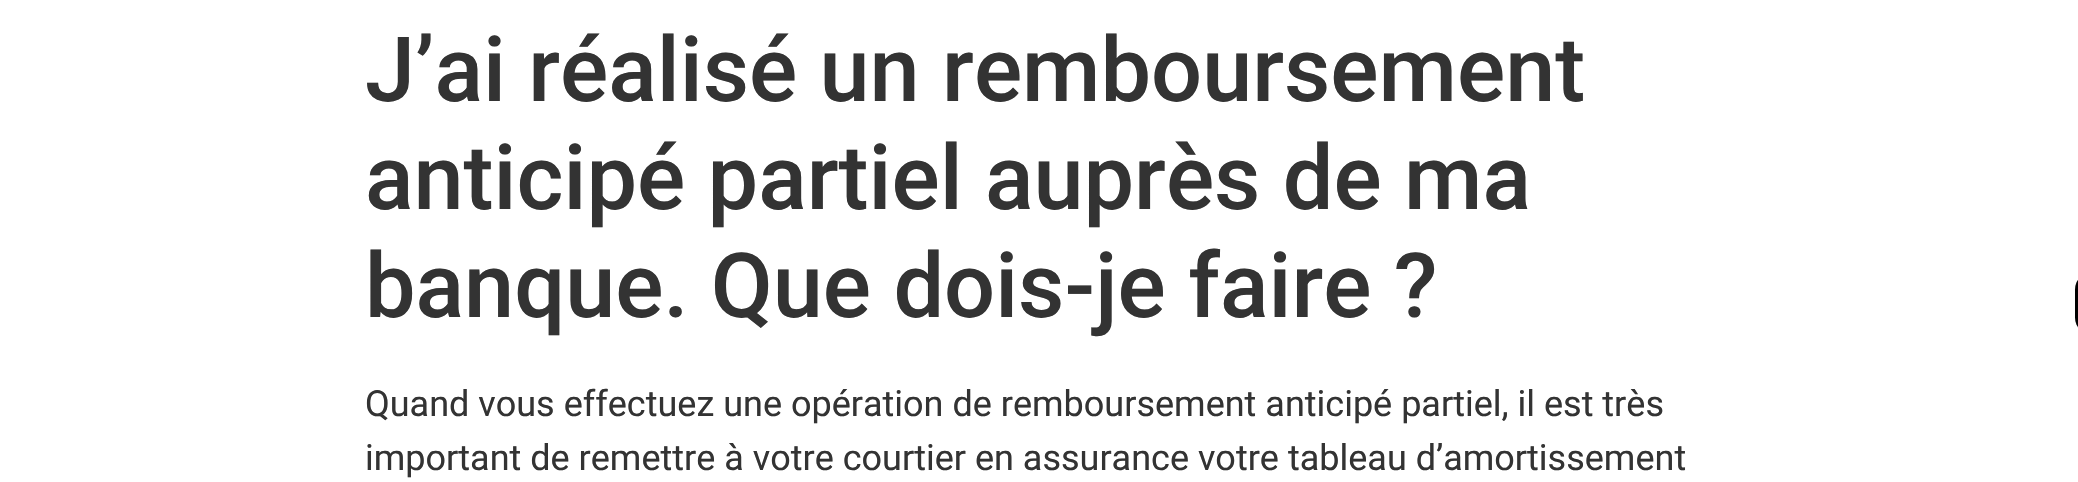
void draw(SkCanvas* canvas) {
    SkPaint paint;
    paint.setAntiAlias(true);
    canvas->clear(0xFFFFFFFF);
    SkFont font1(fontMgr->matchFamilyStyle("Roboto", SkFontStyle(500, SkFontStyle::kNormal_Width, SkFontStyle::kUpright_Slant)), 90);
    font1.setSubpixel(true);
    paint.setColor(0xFF333333);
    canvas->drawString("J’ai réalisé un remboursement", 365, 101, font1, paint);
    canvas->drawString("anticipé partiel auprès de ma", 365, 209, font1, paint);
    canvas->drawString("banque. Que dois-je faire ?", 365, 317, font1, paint);
    SkFont font2(fontMgr->matchFamilyStyle("Roboto", SkFontStyle::Normal()), 36);
    font2.setSubpixel(true);
    canvas->drawString("Quand vous effectuez une opération de remboursement anticipé partiel, il est très", 365, 416, font2, paint);
    canvas->drawString("important de remettre à votre courtier en assurance votre tableau d’amortissement", 365, 470, font2, paint);
    paint.setColor(0xFF000000);
    canvas->drawRoundRect(SkRect::MakeXYWH(2075, 272, 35, 63), 31.5f, 31.5f, paint);
}
